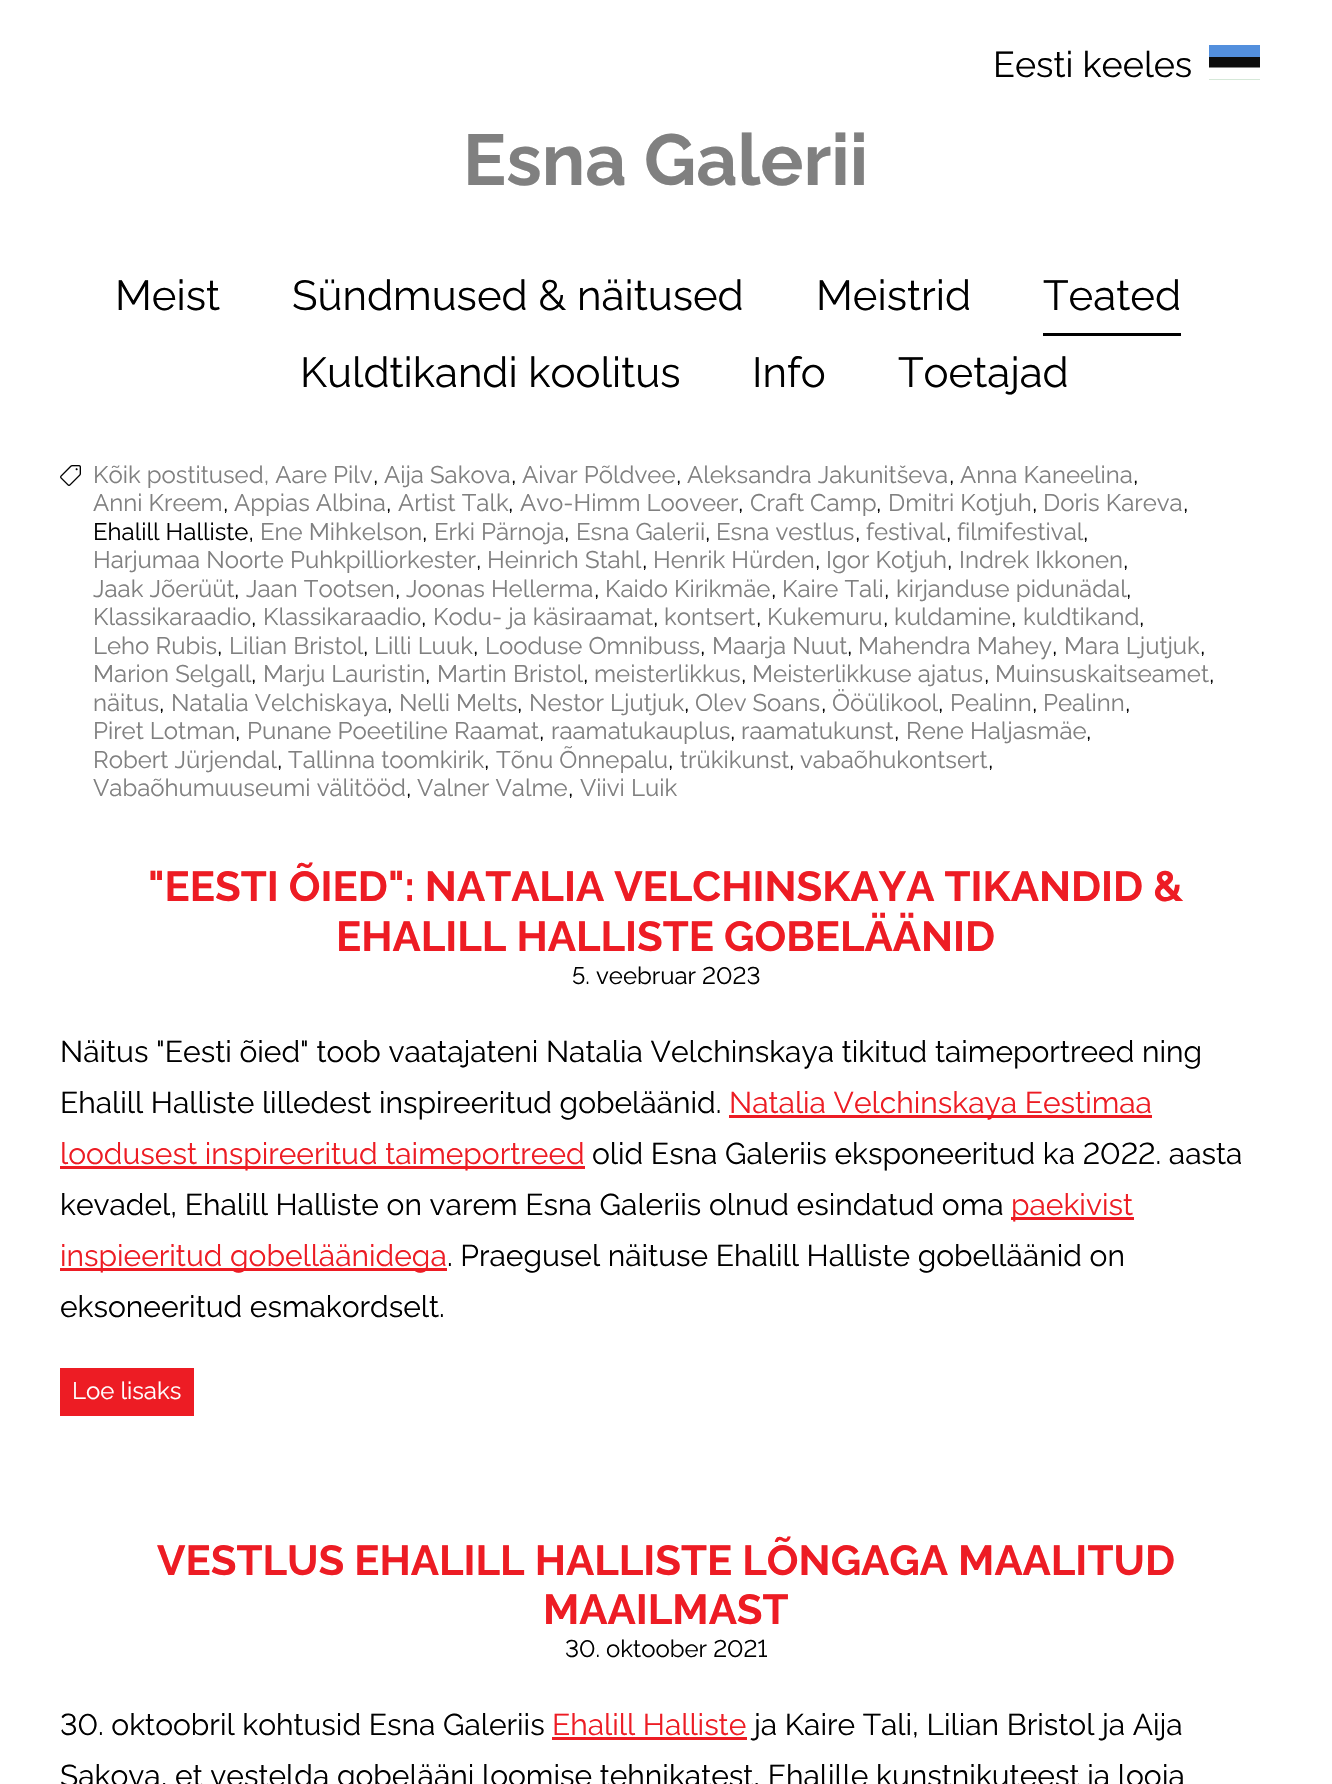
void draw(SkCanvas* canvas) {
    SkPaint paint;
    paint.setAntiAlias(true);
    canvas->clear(0xFFFFFFFF);
    SkFont font1(fontMgr->matchFamilyStyle("Raleway", SkFontStyle::Normal()), 36);
    font1.setSubpixel(true);
    paint.setColor(0xFF000000);
    canvas->drawString("Eesti keeles", 993, 77, font1, paint);
    canvas->drawImageRect(SkImages::DeferredFromEncodedData(SkData::MakeFromFileName("img1.png")), SkRect::MakeXYWH(1209, 45, 51, 35), SkSamplingOptions());
    SkFont font2(fontMgr->matchFamilyStyle("Raleway", SkFontStyle::Bold()), 72);
    font2.setSubpixel(true);
    paint.setColor(0xFF808080);
    canvas->drawString("Esna Galerii", 463, 185, font2, paint);
    SkFont font3(fontMgr->matchFamilyStyle("Raleway", SkFontStyle::Normal()), 42);
    font3.setSubpixel(true);
    paint.setColor(0xFF000000);
    canvas->drawString("Meist", 115, 310, font3, paint);
    canvas->drawString("Sündmused & näitused", 292, 310, font3, paint);
    canvas->drawString("Meistrid", 816, 310, font3, paint);
    canvas->drawRect(SkRect::MakeXYWH(1043, 333, 138, 3), paint);
    canvas->drawString("Teated", 1043, 310, font3, paint);
    canvas->drawString("Kuldtikandi koolitus", 300, 387, font3, paint);
    canvas->drawString("Info", 752, 387, font3, paint);
    canvas->drawString("Toetajad", 898, 387, font3, paint);
    canvas->drawImageRect(SkImages::DeferredFromEncodedData(SkData::MakeFromFileName("img2.png")), SkRect::MakeXYWH(60, 465, 21, 21), SkSamplingOptions());
    SkFont font4(fontMgr->matchFamilyStyle("Raleway", SkFontStyle::Normal()), 24);
    font4.setSubpixel(true);
    paint.setColor(0xFF808080);
    canvas->drawString("Kõik postitused, Aare Pilv", 93, 483, font4, paint);
    paint.setColor(0xFF000000);
    canvas->drawString(",", 373, 483, font4, paint);
    paint.setColor(0xFF808080);
    canvas->drawString("Aija Sakova", 384, 483, font4, paint);
    paint.setColor(0xFF000000);
    canvas->drawString(",", 511, 483, font4, paint);
    paint.setColor(0xFF808080);
    canvas->drawString("Aivar Põldvee", 522, 483, font4, paint);
    paint.setColor(0xFF000000);
    canvas->drawString(",", 676, 483, font4, paint);
    paint.setColor(0xFF808080);
    canvas->drawString("Aleksandra Jakunitševa", 687, 483, font4, paint);
    paint.setColor(0xFF000000);
    canvas->drawString(",", 949, 483, font4, paint);
    paint.setColor(0xFF808080);
    canvas->drawString("Anna Kaneelina", 960, 483, font4, paint);
    paint.setColor(0xFF000000);
    canvas->drawString(",", 1133, 483, font4, paint);
    paint.setColor(0xFF808080);
    canvas->drawString("Anni Kreem", 93, 511, font4, paint);
    paint.setColor(0xFF000000);
    canvas->drawString(",", 223, 511, font4, paint);
    paint.setColor(0xFF808080);
    canvas->drawString("Appias Albina", 234, 511, font4, paint);
    paint.setColor(0xFF000000);
    canvas->drawString(",", 386, 511, font4, paint);
    paint.setColor(0xFF808080);
    canvas->drawString("Artist Talk", 398, 511, font4, paint);
    paint.setColor(0xFF000000);
    canvas->drawString(",", 508, 511, font4, paint);
    paint.setColor(0xFF808080);
    canvas->drawString("Avo-Himm Looveer", 520, 511, font4, paint);
    paint.setColor(0xFF000000);
    canvas->drawString(",", 738, 511, font4, paint);
    paint.setColor(0xFF808080);
    canvas->drawString("Craft Camp", 750, 511, font4, paint);
    paint.setColor(0xFF000000);
    canvas->drawString(",", 876, 511, font4, paint);
    paint.setColor(0xFF808080);
    canvas->drawString("Dmitri Kotjuh", 888, 511, font4, paint);
    paint.setColor(0xFF000000);
    canvas->drawString(",", 1032, 511, font4, paint);
    paint.setColor(0xFF808080);
    canvas->drawString("Doris Kareva", 1043, 511, font4, paint);
    paint.setColor(0xFF000000);
    canvas->drawString(",", 1183, 511, font4, paint);
    canvas->drawString("Ehalill Halliste,", 93, 540, font4, paint);
    paint.setColor(0xFF808080);
    canvas->drawString("Ene Mihkelson", 260, 540, font4, paint);
    paint.setColor(0xFF000000);
    canvas->drawString(",", 422, 540, font4, paint);
    paint.setColor(0xFF808080);
    canvas->drawString("Erki Pärnoja", 434, 540, font4, paint);
    paint.setColor(0xFF000000);
    canvas->drawString(",", 564, 540, font4, paint);
    paint.setColor(0xFF808080);
    canvas->drawString("Esna Galerii", 576, 540, font4, paint);
    paint.setColor(0xFF000000);
    canvas->drawString(",", 705, 540, font4, paint);
    paint.setColor(0xFF808080);
    canvas->drawString("Esna vestlus", 716, 540, font4, paint);
    paint.setColor(0xFF000000);
    canvas->drawString(",", 855, 540, font4, paint);
    paint.setColor(0xFF808080);
    canvas->drawString("festival", 866, 540, font4, paint);
    paint.setColor(0xFF000000);
    canvas->drawString(",", 946, 540, font4, paint);
    paint.setColor(0xFF808080);
    canvas->drawString("filmifestival", 957, 540, font4, paint);
    paint.setColor(0xFF000000);
    canvas->drawString(",", 1083, 540, font4, paint);
    paint.setColor(0xFF808080);
    canvas->drawString("Harjumaa Noorte Puhkpilliorkester", 93, 568, font4, paint);
    paint.setColor(0xFF000000);
    canvas->drawString(",", 476, 568, font4, paint);
    paint.setColor(0xFF808080);
    canvas->drawString("Heinrich Stahl", 487, 568, font4, paint);
    paint.setColor(0xFF000000);
    canvas->drawString(",", 642, 568, font4, paint);
    paint.setColor(0xFF808080);
    canvas->drawString("Henrik Hürden", 653, 568, font4, paint);
    paint.setColor(0xFF000000);
    canvas->drawString(",", 815, 568, font4, paint);
    paint.setColor(0xFF808080);
    canvas->drawString("Igor Kotjuh", 826, 568, font4, paint);
    paint.setColor(0xFF000000);
    canvas->drawString(",", 947, 568, font4, paint);
    paint.setColor(0xFF808080);
    canvas->drawString("Indrek Ikkonen", 959, 568, font4, paint);
    paint.setColor(0xFF000000);
    canvas->drawString(",", 1123, 568, font4, paint);
    paint.setColor(0xFF808080);
    canvas->drawString("Jaak Jõerüüt", 93, 597, font4, paint);
    paint.setColor(0xFF000000);
    canvas->drawString(",", 234, 597, font4, paint);
    paint.setColor(0xFF808080);
    canvas->drawString("Jaan Tootsen", 246, 597, font4, paint);
    paint.setColor(0xFF000000);
    canvas->drawString(",", 395, 597, font4, paint);
    paint.setColor(0xFF808080);
    canvas->drawString("Joonas Hellerma", 406, 597, font4, paint);
    paint.setColor(0xFF000000);
    canvas->drawString(",", 594, 597, font4, paint);
    paint.setColor(0xFF808080);
    canvas->drawString("Kaido Kirikmäe", 605, 597, font4, paint);
    paint.setColor(0xFF000000);
    canvas->drawString(",", 771, 597, font4, paint);
    paint.setColor(0xFF808080);
    canvas->drawString("Kaire Tali", 782, 597, font4, paint);
    paint.setColor(0xFF000000);
    canvas->drawString(",", 884, 597, font4, paint);
    paint.setColor(0xFF808080);
    canvas->drawString("kirjanduse pidunädal", 896, 597, font4, paint);
    paint.setColor(0xFF000000);
    canvas->drawString(",", 1126, 597, font4, paint);
    paint.setColor(0xFF808080);
    canvas->drawString("Klassikaraadio", 93, 625, font4, paint);
    paint.setColor(0xFF000000);
    canvas->drawString(",", 251, 625, font4, paint);
    paint.setColor(0xFF808080);
    canvas->drawString("Klassikaraadio", 263, 625, font4, paint);
    paint.setColor(0xFF000000);
    canvas->drawString(",", 421, 625, font4, paint);
    paint.setColor(0xFF808080);
    canvas->drawString("Kodu- ja käsiraamat", 433, 625, font4, paint);
    paint.setColor(0xFF000000);
    canvas->drawString(",", 653, 625, font4, paint);
    paint.setColor(0xFF808080);
    canvas->drawString("kontsert", 664, 625, font4, paint);
    paint.setColor(0xFF000000);
    canvas->drawString(",", 756, 625, font4, paint);
    paint.setColor(0xFF808080);
    canvas->drawString("Kukemuru", 767, 625, font4, paint);
    paint.setColor(0xFF000000);
    canvas->drawString(",", 883, 625, font4, paint);
    paint.setColor(0xFF808080);
    canvas->drawString("kuldamine", 894, 625, font4, paint);
    paint.setColor(0xFF000000);
    canvas->drawString(",", 1011, 625, font4, paint);
    paint.setColor(0xFF808080);
    canvas->drawString("kuldtikand", 1023, 625, font4, paint);
    paint.setColor(0xFF000000);
    canvas->drawString(",", 1139, 625, font4, paint);
    paint.setColor(0xFF808080);
    canvas->drawString("Leho Rubis", 93, 654, font4, paint);
    paint.setColor(0xFF000000);
    canvas->drawString(",", 217, 654, font4, paint);
    paint.setColor(0xFF808080);
    canvas->drawString("Lilian Bristol", 229, 654, font4, paint);
    paint.setColor(0xFF000000);
    canvas->drawString(",", 363, 654, font4, paint);
    paint.setColor(0xFF808080);
    canvas->drawString("Lilli Luuk", 374, 654, font4, paint);
    paint.setColor(0xFF000000);
    canvas->drawString(",", 473, 654, font4, paint);
    paint.setColor(0xFF808080);
    canvas->drawString("Looduse Omnibuss", 485, 654, font4, paint);
    paint.setColor(0xFF000000);
    canvas->drawString(",", 700, 654, font4, paint);
    paint.setColor(0xFF808080);
    canvas->drawString("Maarja Nuut", 712, 654, font4, paint);
    paint.setColor(0xFF000000);
    canvas->drawString(",", 847, 654, font4, paint);
    paint.setColor(0xFF808080);
    canvas->drawString("Mahendra Mahey", 858, 654, font4, paint);
    paint.setColor(0xFF000000);
    canvas->drawString(",", 1052, 654, font4, paint);
    paint.setColor(0xFF808080);
    canvas->drawString("Mara Ljutjuk", 1064, 654, font4, paint);
    paint.setColor(0xFF000000);
    canvas->drawString(",", 1200, 654, font4, paint);
    paint.setColor(0xFF808080);
    canvas->drawString("Marion Selgall", 93, 682, font4, paint);
    paint.setColor(0xFF000000);
    canvas->drawString(",", 251, 682, font4, paint);
    paint.setColor(0xFF808080);
    canvas->drawString("Marju Lauristin", 263, 682, font4, paint);
    paint.setColor(0xFF000000);
    canvas->drawString(",", 425, 682, font4, paint);
    paint.setColor(0xFF808080);
    canvas->drawString("Martin Bristol", 437, 682, font4, paint);
    paint.setColor(0xFF000000);
    canvas->drawString(",", 583, 682, font4, paint);
    paint.setColor(0xFF808080);
    canvas->drawString("meisterlikkus", 594, 682, font4, paint);
    paint.setColor(0xFF000000);
    canvas->drawString(",", 741, 682, font4, paint);
    paint.setColor(0xFF808080);
    canvas->drawString("Meisterlikkuse ajatus", 752, 682, font4, paint);
    paint.setColor(0xFF000000);
    canvas->drawString(",", 984, 682, font4, paint);
    paint.setColor(0xFF808080);
    canvas->drawString("Muinsuskaitseamet", 995, 682, font4, paint);
    paint.setColor(0xFF000000);
    canvas->drawString(",", 1209, 682, font4, paint);
    paint.setColor(0xFF808080);
    canvas->drawString("näitus", 93, 711, font4, paint);
    paint.setColor(0xFF000000);
    canvas->drawString(",", 159, 711, font4, paint);
    paint.setColor(0xFF808080);
    canvas->drawString("Natalia Velchiskaya", 171, 711, font4, paint);
    paint.setColor(0xFF000000);
    canvas->drawString(",", 387, 711, font4, paint);
    paint.setColor(0xFF808080);
    canvas->drawString("Nelli Melts", 399, 711, font4, paint);
    paint.setColor(0xFF000000);
    canvas->drawString(",", 517, 711, font4, paint);
    paint.setColor(0xFF808080);
    canvas->drawString("Nestor Ljutjuk", 529, 711, font4, paint);
    paint.setColor(0xFF000000);
    canvas->drawString(",", 684, 711, font4, paint);
    paint.setColor(0xFF808080);
    canvas->drawString("Olev Soans", 695, 711, font4, paint);
    paint.setColor(0xFF000000);
    canvas->drawString(",", 821, 711, font4, paint);
    paint.setColor(0xFF808080);
    canvas->drawString("Ööülikool", 832, 711, font4, paint);
    paint.setColor(0xFF000000);
    canvas->drawString(",", 938, 711, font4, paint);
    paint.setColor(0xFF808080);
    canvas->drawString("Pealinn", 950, 711, font4, paint);
    paint.setColor(0xFF000000);
    canvas->drawString(",", 1032, 711, font4, paint);
    paint.setColor(0xFF808080);
    canvas->drawString("Pealinn", 1043, 711, font4, paint);
    paint.setColor(0xFF000000);
    canvas->drawString(",", 1125, 711, font4, paint);
    paint.setColor(0xFF808080);
    canvas->drawString("Piret Lotman", 93, 739, font4, paint);
    paint.setColor(0xFF000000);
    canvas->drawString(",", 235, 739, font4, paint);
    paint.setColor(0xFF808080);
    canvas->drawString("Punane Poeetiline Raamat", 247, 739, font4, paint);
    paint.setColor(0xFF000000);
    canvas->drawString(",", 539, 739, font4, paint);
    paint.setColor(0xFF808080);
    canvas->drawString("raamatukauplus", 551, 739, font4, paint);
    paint.setColor(0xFF000000);
    canvas->drawString(",", 730, 739, font4, paint);
    paint.setColor(0xFF808080);
    canvas->drawString("raamatukunst", 741, 739, font4, paint);
    paint.setColor(0xFF000000);
    canvas->drawString(",", 894, 739, font4, paint);
    paint.setColor(0xFF808080);
    canvas->drawString("Rene Haljasmäe", 906, 739, font4, paint);
    paint.setColor(0xFF000000);
    canvas->drawString(",", 1086, 739, font4, paint);
    paint.setColor(0xFF808080);
    canvas->drawString("Robert Jürjendal", 93, 768, font4, paint);
    paint.setColor(0xFF000000);
    canvas->drawString(",", 277, 768, font4, paint);
    paint.setColor(0xFF808080);
    canvas->drawString("Tallinna toomkirik", 288, 768, font4, paint);
    paint.setColor(0xFF000000);
    canvas->drawString(",", 484, 768, font4, paint);
    paint.setColor(0xFF808080);
    canvas->drawString("Tõnu Õnnepalu", 496, 768, font4, paint);
    paint.setColor(0xFF000000);
    canvas->drawString(",", 668, 768, font4, paint);
    paint.setColor(0xFF808080);
    canvas->drawString("trükikunst", 680, 768, font4, paint);
    paint.setColor(0xFF000000);
    canvas->drawString(",", 789, 768, font4, paint);
    paint.setColor(0xFF808080);
    canvas->drawString("vabaõhukontsert", 800, 768, font4, paint);
    paint.setColor(0xFF000000);
    canvas->drawString(",", 988, 768, font4, paint);
    paint.setColor(0xFF808080);
    canvas->drawString("Vabaõhumuuseumi välitööd", 93, 796, font4, paint);
    paint.setColor(0xFF000000);
    canvas->drawString(",", 406, 796, font4, paint);
    paint.setColor(0xFF808080);
    canvas->drawString("Valner Valme", 417, 796, font4, paint);
    paint.setColor(0xFF000000);
    canvas->drawString(",", 568, 796, font4, paint);
    paint.setColor(0xFF808080);
    canvas->drawString("Viivi Luik", 580, 796, font4, paint);
    SkFont font5(fontMgr->matchFamilyStyle("Raleway", SkFontStyle::Bold()), 42);
    font5.setSubpixel(true);
    paint.setColor(0xFFED1C24);
    canvas->drawString("\"EESTI ÕIED\": NATALIA VELCHINSKAYA TIKANDID &", 148, 901, font5, paint);
    canvas->drawString("EHALILL HALLISTE GOBELÄÄNID", 336, 951, font5, paint);
    SkFont font6(fontMgr->matchFamilyStyle("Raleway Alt", SkFontStyle::Normal()), 24);
    font6.setSubpixel(true);
    paint.setColor(0xFF000000);
    canvas->drawString("5. veebruar 2023", 572, 984, font6, paint);
    SkFont font7(fontMgr->matchFamilyStyle("Raleway", SkFontStyle::Normal()), 30);
    font7.setSubpixel(true);
    canvas->drawString("Näitus \"Eesti õied\" toob vaatajateni Natalia Velchinskaya tikitud taimeportreed ning", 60, 1062, font7, paint);
    canvas->drawString("Ehalill Halliste lilledest inspireeritud gobeläänid.", 60, 1113, font7, paint);
    paint.setColor(0xFFED1C24);
    canvas->drawRect(SkRect::MakeXYWH(729, 1115, 423, 3), paint);
    canvas->drawString("Natalia Velchinskaya Eestimaa", 729, 1113, font7, paint);
    canvas->drawRect(SkRect::MakeXYWH(60, 1166, 525, 3), paint);
    canvas->drawString("loodusest inspireeritud taimeportreed", 60, 1164, font7, paint);
    SkFont font8(fontMgr->matchFamilyStyle("Raleway Alt", SkFontStyle::Normal()), 30);
    font8.setSubpixel(true);
    paint.setColor(0xFF000000);
    canvas->drawString("olid Esna Galeriis eksponeeritud ka 2022. aasta", 592, 1164, font8, paint);
    canvas->drawString("kevadel, Ehalill Halliste on varem Esna Galeriis olnud esindatud oma", 60, 1215, font7, paint);
    paint.setColor(0xFFED1C24);
    canvas->drawRect(SkRect::MakeXYWH(1011, 1217, 123, 3), paint);
    canvas->drawString("paekivist", 1011, 1215, font7, paint);
    canvas->drawRect(SkRect::MakeXYWH(60, 1268, 387, 3), paint);
    canvas->drawString("inspieeritud gobelläänidega", 60, 1266, font7, paint);
    paint.setColor(0xFF000000);
    canvas->drawString(". Praegusel näituse Ehalill Halliste gobelläänid on", 447, 1266, font7, paint);
    canvas->drawString("eksoneeritud esmakordselt.", 60, 1317, font7, paint);
    paint.setColor(0xFFED1C24);
    canvas->drawRect(SkRect::MakeXYWH(60, 1368, 134, 48), paint);
    paint.setColor(0xFFFFFFFF);
    canvas->drawString("Loe lisaks", 72, 1399, font4, paint);
    paint.setColor(0xFFED1C24);
    canvas->drawString("VESTLUS EHALILL HALLISTE LÕNGAGA MAALITUD", 157, 1575, font5, paint);
    canvas->drawString("MAAILMAST", 543, 1624, font5, paint);
    paint.setColor(0xFF000000);
    canvas->drawString("30. oktoober 2021", 565, 1657, font6, paint);
    canvas->drawString("30. oktoobril kohtusid Esna Galeriis", 60, 1735, font8, paint);
    paint.setColor(0xFFED1C24);
    canvas->drawString("Ehalill Halliste", 552, 1735, font7, paint);
    canvas->drawRect(SkRect::MakeXYWH(552, 1737, 195, 3), paint);
    paint.setColor(0xFF000000);
    canvas->drawString("ja Kaire Tali, Lilian Bristol ja Aija", 754, 1735, font7, paint);
    canvas->drawString("Sakova, et vestelda gobelääni loomise tehnikatest, Ehalille kunstnikuteest ja looja", 60, 1786, font7, paint);
}
